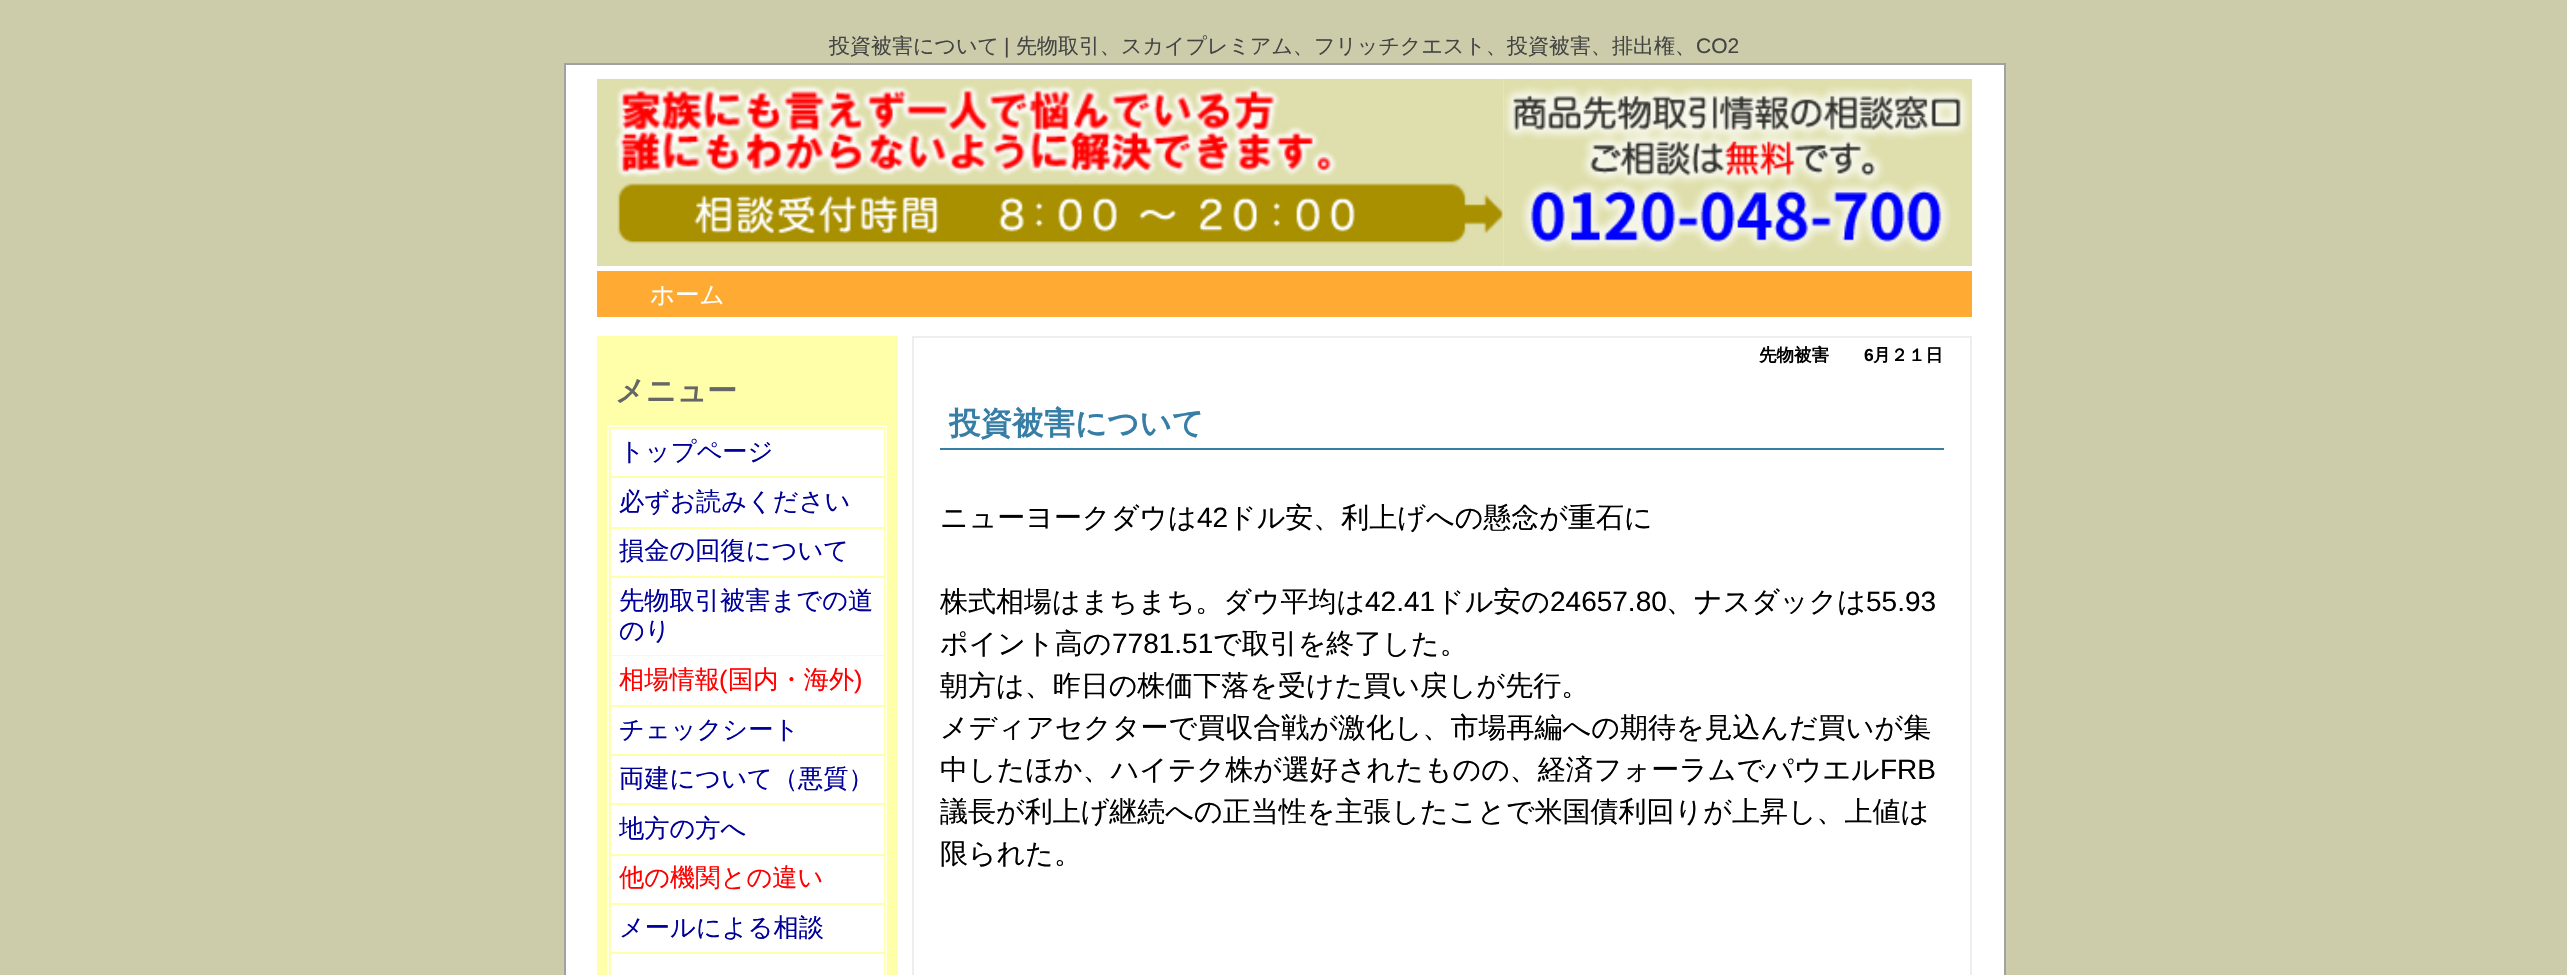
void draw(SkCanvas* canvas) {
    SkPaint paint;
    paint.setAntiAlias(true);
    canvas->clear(0xFFCCCCAA);
    SkFont font1(fontMgr->matchFamilyStyle("WenQuanYi Zen Hei", SkFontStyle(500, SkFontStyle::kNormal_Width, SkFontStyle::kUpright_Slant)), 21);
    font1.setSubpixel(true);
    paint.setColor(0xFF444444);
    canvas->drawString("投資被害について", 829, 53, font1, paint);
    SkFont font2(fontMgr->matchFamilyStyle("Liberation Sans", SkFontStyle::Normal()), 21);
    font2.setSubpixel(true);
    canvas->drawString("|", 1004, 53, font2, paint);
    canvas->drawString("先物取引、スカイプレミアム、フリッチクエスト、投資被害、排出権、", 1016, 53, font1, paint);
    canvas->drawString("CO2", 1696, 53, font2, paint);
    paint.setColor(0xFFFFFFFF);
    canvas->drawRect(SkRect::MakeXYWH(565, 64, 1440, 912), paint);
    paint.setStyle(SkPaint::kStroke_Style);
    paint.setStrokeWidth(2);
    paint.setColor(0xFFA1A1A1);
    canvas->drawRect(SkRect::MakeXYWH(565, 64, 1440, 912), paint);
    canvas->drawImageRect(SkImages::DeferredFromEncodedData(SkData::MakeFromFileName("img1.png")), SkRect::MakeXYWH(596, 78, 908, 188), SkSamplingOptions());
    canvas->drawImageRect(SkImages::DeferredFromEncodedData(SkData::MakeFromFileName("img2.png")), SkRect::MakeXYWH(1503, 78, 470, 188), SkSamplingOptions());
    paint.setStyle(SkPaint::kFill_Style);
    paint.setColor(0xFFFFAA33);
    canvas->drawRect(SkRect::MakeXYWH(597, 271, 1375, 46), paint);
    SkFont font3(fontMgr->matchFamilyStyle("WenQuanYi Zen Hei", SkFontStyle(500, SkFontStyle::kNormal_Width, SkFontStyle::kUpright_Slant)), 24.5f);
    font3.setSubpixel(true);
    paint.setColor(0xFFFFFFFF);
    canvas->drawString("ホーム", 650, 303, font3, paint);
    paint.setColor(0xFFFFFFAA);
    canvas->drawRect(SkRect::MakeXYWH(597, 336, 301, 639), paint);
    SkFont font4(fontMgr->matchFamilyStyle("WenQuanYi Zen Hei", SkFontStyle::Bold()), 30);
    font4.setSubpixel(true);
    paint.setColor(0xFF666666);
    canvas->drawString("メニュー", 615, 401, font4, paint);
    paint.setStyle(SkPaint::kStroke_Style);
    paint.setColor(0xFFFFFFEE);
    canvas->drawRect(SkRect::MakeXYWH(608, 426, 278, 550), paint);
    paint.setStyle(SkPaint::kFill_Style);
    paint.setColor(0xFFFFFFFF);
    canvas->drawRect(SkRect::MakeXYWH(611, 429, 273, 47), paint);
    SkFont font5(fontMgr->matchFamilyStyle("WenQuanYi Zen Hei", SkFontStyle(500, SkFontStyle::kNormal_Width, SkFontStyle::kUpright_Slant)), 25.25f);
    font5.setSubpixel(true);
    paint.setColor(0xFF000099);
    canvas->drawString("トップページ", 619, 460, font5, paint);
    paint.setColor(0xFFFFFFFF);
    canvas->drawRect(SkRect::MakeXYWH(611, 478, 273, 49), paint);
    paint.setColor(0xFF000099);
    canvas->drawString("必ずお読みください", 619, 510, font5, paint);
    paint.setColor(0xFFFFFFFF);
    canvas->drawRect(SkRect::MakeXYWH(611, 529, 273, 47), paint);
    paint.setColor(0xFF000099);
    canvas->drawString("損金の回復について", 619, 559, font5, paint);
    paint.setColor(0xFFFFFFFF);
    canvas->drawRect(SkRect::MakeXYWH(611, 578, 273, 77), paint);
    paint.setColor(0xFF000099);
    canvas->drawString("先物取引被害までの道", 619, 609, font5, paint);
    canvas->drawString("のり", 619, 639, font5, paint);
    paint.setColor(0xFFFFFFFF);
    canvas->drawRect(SkRect::MakeXYWH(611, 656, 273, 49), paint);
    paint.setColor(0xFFFF0000);
    canvas->drawString("相場情報", 619, 688, font5, paint);
    SkFont font6(fontMgr->matchFamilyStyle("Liberation Sans", SkFontStyle::Normal()), 25.25f);
    font6.setSubpixel(true);
    canvas->drawString("(", 719, 688, font6, paint);
    canvas->drawString("国内・海外", 728, 688, font5, paint);
    canvas->drawString(")", 854, 688, font6, paint);
    paint.setColor(0xFFFFFFFF);
    canvas->drawRect(SkRect::MakeXYWH(611, 707, 273, 47), paint);
    paint.setColor(0xFF000099);
    canvas->drawString("チェックシート", 619, 738, font5, paint);
    paint.setColor(0xFFFFFFFF);
    canvas->drawRect(SkRect::MakeXYWH(611, 756, 273, 47), paint);
    paint.setColor(0xFF000099);
    canvas->drawString("両建について（悪質）", 619, 787, font5, paint);
    paint.setColor(0xFFFFFFFF);
    canvas->drawRect(SkRect::MakeXYWH(611, 805, 273, 49), paint);
    paint.setColor(0xFF000099);
    canvas->drawString("地方の方へ", 619, 837, font5, paint);
    paint.setColor(0xFFFFFFFF);
    canvas->drawRect(SkRect::MakeXYWH(611, 856, 273, 47), paint);
    paint.setColor(0xFFFF0000);
    canvas->drawString("他の機関との違い", 619, 886, font5, paint);
    paint.setColor(0xFFFFFFFF);
    canvas->drawRect(SkRect::MakeXYWH(611, 905, 273, 47), paint);
    paint.setColor(0xFF000099);
    canvas->drawString("メールによる相談", 619, 936, font5, paint);
    paint.setColor(0xFFFFFFFF);
    canvas->drawRect(SkRect::MakeXYWH(611, 954, 273, 21), paint);
    paint.setStyle(SkPaint::kStroke_Style);
    paint.setColor(0xFFEEEEEE);
    canvas->drawRect(SkRect::MakeXYWH(913, 337, 1058, 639), paint);
    SkFont font7(fontMgr->matchFamilyStyle("WenQuanYi Zen Hei", SkFontStyle::Bold()), 17.5f);
    font7.setSubpixel(true);
    paint.setStyle(SkPaint::kFill_Style);
    paint.setColor(0xFF000000);
    canvas->drawString("先物被害", 1759, 361, font7, paint);
    SkFont font8(fontMgr->matchFamilyStyle("Liberation Sans", SkFontStyle::Bold()), 17.5f);
    font8.setSubpixel(true);
    canvas->drawString("6", 1864, 361, font8, paint);
    canvas->drawString("月２１日", 1873, 361, font7, paint);
    paint.setColor(0xFF367EA6);
    canvas->drawRect(SkRect::MakeXYWH(940, 448, 1004, 2), paint);
    SkFont font9(fontMgr->matchFamilyStyle("WenQuanYi Zen Hei", SkFontStyle::Bold()), 31.5f);
    font9.setSubpixel(true);
    canvas->drawString("投資被害について", 949, 434, font9, paint);
    SkFont font10(fontMgr->matchFamilyStyle("WenQuanYi Zen Hei", SkFontStyle(500, SkFontStyle::kNormal_Width, SkFontStyle::kUpright_Slant)), 28);
    font10.setSubpixel(true);
    paint.setColor(0xFF000000);
    canvas->drawString("ニューヨークダウは", 940, 527, font10, paint);
    SkFont font11(fontMgr->matchFamilyStyle("Liberation Sans", SkFontStyle::Normal()), 28);
    font11.setSubpixel(true);
    canvas->drawString("42", 1197, 527, font11, paint);
    canvas->drawString("ドル安、利上げへの懸念が重石に", 1228, 527, font10, paint);
    canvas->drawString("株式相場はまちまち。ダウ平均は", 940, 611, font10, paint);
    canvas->drawString("42.41", 1365, 611, font11, paint);
    canvas->drawString("ドル安の", 1436, 611, font10, paint);
    canvas->drawString("24657.80", 1550, 611, font11, paint);
    canvas->drawString("、ナスダックは", 1666, 611, font10, paint);
    canvas->drawString("55.93", 1866, 611, font11, paint);
    canvas->drawString("ポイント高の", 940, 653, font10, paint);
    canvas->drawString("7781.51", 1112, 653, font11, paint);
    canvas->drawString("で取引を終了した。", 1213, 653, font10, paint);
    canvas->drawString("朝方は、昨日の株価下落を受けた買い戻しが先行。", 940, 695, font10, paint);
    canvas->drawString("メディアセクターで買収合戦が激化し、市場再編への期待を見込んだ買いが集", 940, 737, font10, paint);
    canvas->drawString("中したほか、ハイテク株が選好されたものの、経済フォーラムでパウエル", 940, 779, font10, paint);
    canvas->drawString("FRB", 1880, 779, font11, paint);
    canvas->drawString("議長が利上げ継続への正当性を主張したことで米国債利回りが上昇し、上値は", 940, 821, font10, paint);
    canvas->drawString("限られた。", 940, 863, font10, paint);
}
